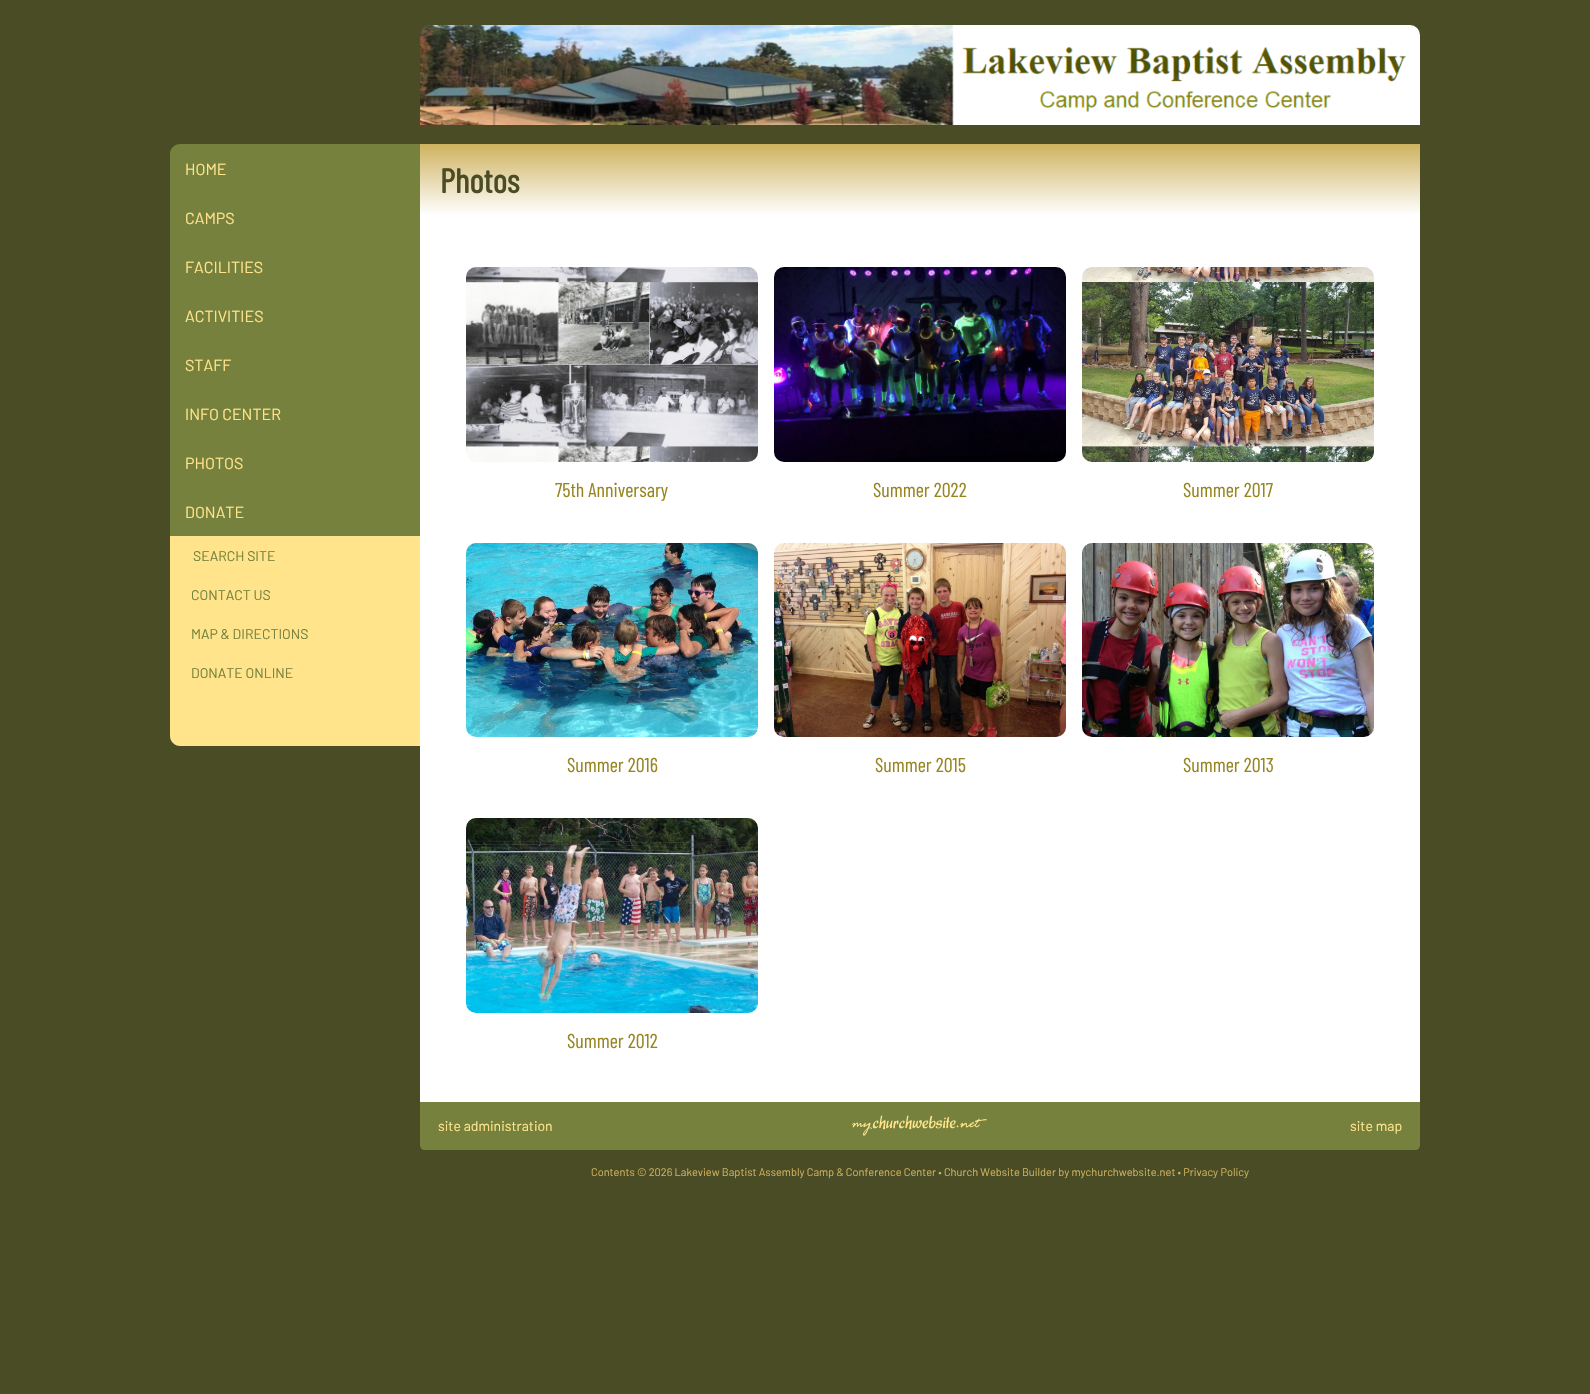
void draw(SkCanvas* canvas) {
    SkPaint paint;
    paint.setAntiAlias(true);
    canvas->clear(0xFF4A4C26);
    canvas->drawImageRect(SkImages::DeferredFromEncodedData(SkData::MakeFromFileName("img1.png")), SkRect::MakeXYWH(420, 25, 1000, 100), SkSamplingOptions());
    paint.setColor(0xFF75813C);
    canvas->drawPath(SkPathBuilder().moveTo(180, 144).lineTo(420, 144).lineTo(420, 193).lineTo(170, 193).lineTo(170, 154).cubicTo(170, 148.5f, 174.5f, 144, 180, 144).close().detach(), paint);
    SkFont font1(fontMgr->matchFamilyStyle("Barlow", SkFontStyle::Normal()), 16);
    font1.setSubpixel(true);
    paint.setColor(0xFFFFE48C);
    canvas->drawString("HOME", 185, 175, font1, paint);
    paint.setColor(0xFF75813C);
    canvas->drawRect(SkRect::MakeXYWH(170, 193, 250, 343), paint);
    paint.setColor(0xFFFFE48C);
    canvas->drawString("CAMPS", 185, 224, font1, paint);
    canvas->drawString("FACILITIES", 185, 273, font1, paint);
    canvas->drawString("ACTIVITIES", 185, 322, font1, paint);
    canvas->drawString("STAFF", 185, 371, font1, paint);
    canvas->drawString("INFO CENTER", 185, 420, font1, paint);
    canvas->drawString("PHOTOS", 185, 469, font1, paint);
    canvas->drawString("DONATE", 185, 518, font1, paint);
    canvas->drawRect(SkRect::MakeXYWH(170, 536, 250, 156), paint);
    SkFont font2(fontMgr->matchFamilyStyle("Barlow", SkFontStyle::Normal()), 14);
    font2.setSubpixel(true);
    paint.setColor(0xFF75813C);
    canvas->drawString("SEARCH SITE", 193, 561, font2, paint);
    canvas->drawString("CONTACT US", 191, 600, font2, paint);
    canvas->drawString("MAP & DIRECTIONS", 191, 639, font2, paint);
    canvas->drawString("DONATE ONLINE", 191, 678, font2, paint);
    paint.setColor(0xFFFFE48C);
    canvas->drawPath(SkPathBuilder().moveTo(170, 692).lineTo(420, 692).lineTo(420, 746).lineTo(180, 746).cubicTo(174.5f, 746, 170, 741.5f, 170, 736).close().detach(), paint);
    {
        const SkColor colors[] = {0xFFCEB25E, 0xFFFFFFFF};
        const float stops[] = {0, 1};
        const SkPoint ends[] = {{920, 144}, {920, 215}};
        paint.setShader(SkGradientShader::MakeLinear(ends, colors, stops, 2, SkTileMode::kClamp));
        paint.setAlpha(255);
    }
    canvas->drawRect(SkRect::MakeXYWH(420, 144, 1000, 71), paint);
    SkFont font3(fontMgr->matchFamilyStyle("Barlow Condensed", SkFontStyle::Bold()), 34);
    font3.setSubpixel(true);
    paint.setShader(nullptr);
    paint.setColor(0xFF4A4C26);
    canvas->drawString("Photos", 440, 193, font3, paint);
    paint.setColor(0xFFFFFFFF);
    canvas->drawRect(SkRect::MakeXYWH(420, 215, 1000, 887), paint);
    canvas->drawImageRect(SkImages::DeferredFromEncodedData(SkData::MakeFromFileName("img2.png")), SkRect::MakeXYWH(466, 267, 292, 195), SkSamplingOptions());
    SkFont font4(fontMgr->matchFamilyStyle("Barlow Condensed", SkFontStyle::Normal()), 20);
    font4.setSubpixel(true);
    paint.setColor(0xFF978521);
    canvas->drawString("75th Anniversary", 555, 497, font4, paint);
    canvas->drawImageRect(SkImages::DeferredFromEncodedData(SkData::MakeFromFileName("img3.png")), SkRect::MakeXYWH(774, 267, 292, 195), SkSamplingOptions());
    canvas->drawString("Summer 2022", 873, 497, font4, paint);
    canvas->drawImageRect(SkImages::DeferredFromEncodedData(SkData::MakeFromFileName("img4.png")), SkRect::MakeXYWH(1082, 267, 292, 195), SkSamplingOptions());
    canvas->drawString("Summer 2017", 1183, 497, font4, paint);
    canvas->drawImageRect(SkImages::DeferredFromEncodedData(SkData::MakeFromFileName("img5.png")), SkRect::MakeXYWH(466, 543, 292, 194), SkSamplingOptions());
    canvas->drawString("Summer 2016", 567, 772, font4, paint);
    canvas->drawImageRect(SkImages::DeferredFromEncodedData(SkData::MakeFromFileName("img6.png")), SkRect::MakeXYWH(774, 543, 292, 194), SkSamplingOptions());
    canvas->drawString("Summer 2015", 875, 772, font4, paint);
    canvas->drawImageRect(SkImages::DeferredFromEncodedData(SkData::MakeFromFileName("img7.png")), SkRect::MakeXYWH(1082, 543, 292, 194), SkSamplingOptions());
    canvas->drawString("Summer 2013", 1183, 772, font4, paint);
    canvas->drawImageRect(SkImages::DeferredFromEncodedData(SkData::MakeFromFileName("img8.png")), SkRect::MakeXYWH(466, 818, 292, 195), SkSamplingOptions());
    canvas->drawString("Summer 2012", 567, 1048, font4, paint);
    paint.setColor(0xFF75813C);
    canvas->drawPath(SkPathBuilder().moveTo(420, 1102).lineTo(1420, 1102).lineTo(1420, 1145).cubicTo(1420, 1148, 1418, 1150, 1415, 1150).lineTo(425, 1150).cubicTo(422, 1150, 420, 1148, 420, 1145).close().detach(), paint);
    paint.setColor(0xFFFFE48C);
    canvas->drawString("site administration", 438, 1131, font2, paint);
    canvas->drawImageRect(SkImages::DeferredFromEncodedData(SkData::MakeFromFileName("img9.png")), SkRect::MakeXYWH(852, 1115, 135, 21), SkSamplingOptions());
    canvas->drawString("site map", 1350, 1131, font2, paint);
    SkFont font5(fontMgr->matchFamilyStyle("Barlow", SkFontStyle::Normal()), 11);
    font5.setSubpixel(true);
    paint.setColor(0xFFCEB25E);
    canvas->drawString("Contents © 2026 Lakeview Baptist Assembly Camp & Conference Center • Church Website Builder by mychurchwebsite.net • Privacy Policy", 591, 1176, font5, paint);
}
